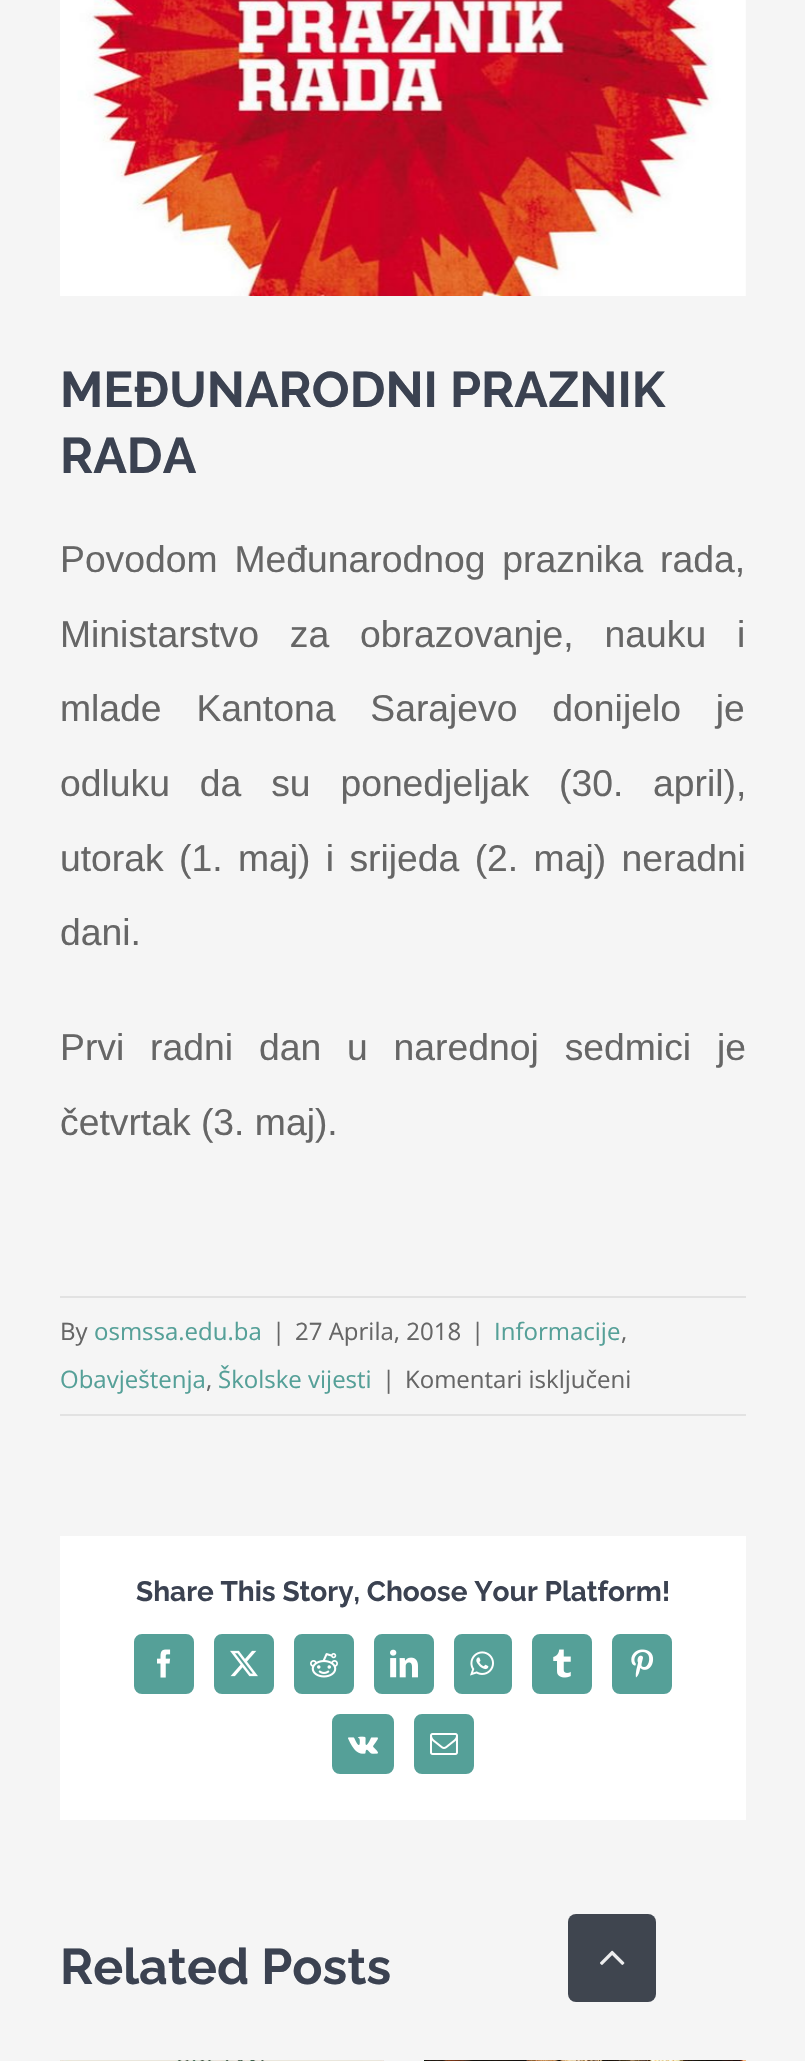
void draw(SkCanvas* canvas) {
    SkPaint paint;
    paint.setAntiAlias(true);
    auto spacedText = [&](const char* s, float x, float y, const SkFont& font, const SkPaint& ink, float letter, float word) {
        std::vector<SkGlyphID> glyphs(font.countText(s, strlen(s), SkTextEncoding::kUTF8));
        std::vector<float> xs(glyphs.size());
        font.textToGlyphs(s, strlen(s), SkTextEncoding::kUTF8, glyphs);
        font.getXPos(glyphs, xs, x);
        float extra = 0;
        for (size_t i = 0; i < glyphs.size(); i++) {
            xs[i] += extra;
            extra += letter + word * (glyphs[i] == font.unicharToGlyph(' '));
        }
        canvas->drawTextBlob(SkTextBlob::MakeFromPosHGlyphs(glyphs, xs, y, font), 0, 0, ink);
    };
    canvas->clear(0xFFF5F5F5);
    canvas->drawImageRect(SkImages::DeferredFromEncodedData(SkData::MakeFromFileName("img1.png")), SkRect::MakeXYWH(60, 0, 686, 296), SkSamplingOptions());
    SkFont font1(fontMgr->matchFamilyStyle("Raleway", SkFontStyle(100, SkFontStyle::kNormal_Width, SkFontStyle::kUpright_Slant)), 50);
    font1.setSubpixel(true);
    paint.setColor(0xFF3B4251);
    canvas->drawString("MEĐUNARODNI PRAZNIK", 60, 407, font1, paint);
    canvas->drawString("RADA", 60, 473, font1, paint);
    SkFont font2(fontMgr->matchFamilyStyle("Liberation Sans", SkFontStyle::Normal()), 37.3f);
    font2.setSubpixel(true);
    paint.setColor(0xFF666666);
    spacedText("Povodom Međunarodnog praznika rada,", 60, 572, font2, paint, 0, 6.5f);
    spacedText("Ministarstvo za obrazovanje, nauku i", 60, 647, font2, paint, 0, 20.5f);
    spacedText("mlade Kantona Sarajevo donijelo je", 60, 721, font2, paint, 0, 24.5f);
    spacedText("odluku da su ponedjeljak (30. april),", 60, 796, font2, paint, 0, 19.5f);
    spacedText("utorak (1. maj) i srijeda (2. maj) neradni", 60, 871, font2, paint, 0, 5);
    canvas->drawString("dani.", 60, 945, font2, paint);
    spacedText("Prvi radni dan u narednoj sedmici je", 60, 1060, font2, paint, 0, 15.5f);
    canvas->drawString("četvrtak (3. maj).", 60, 1135, font2, paint);
    paint.setColor(0xFFE2E2E2);
    canvas->drawRect(SkRect::MakeXYWH(60, 1296, 686, 2), paint);
    canvas->drawRect(SkRect::MakeXYWH(60, 1414, 686, 2), paint);
    SkFont font3(fontMgr->matchFamilyStyle("Open Sans", SkFontStyle::Normal()), 24);
    font3.setSubpixel(true);
    paint.setColor(0xFF666666);
    canvas->drawString("By", 60, 1340, font3, paint);
    paint.setColor(0xFF55A098);
    canvas->drawString("osmssa.edu.ba", 94, 1340, font3, paint);
    paint.setColor(0xFF666666);
    canvas->drawString("|", 272, 1340, font3, paint);
    canvas->drawString("27 Aprila, 2018", 295, 1340, font3, paint);
    canvas->drawString("|", 471, 1340, font3, paint);
    paint.setColor(0xFF55A098);
    canvas->drawString("Informacije", 494, 1340, font3, paint);
    paint.setColor(0xFF666666);
    canvas->drawString(",", 621, 1340, font3, paint);
    paint.setColor(0xFF55A098);
    canvas->drawString("Obavještenja", 60, 1388, font3, paint);
    paint.setColor(0xFF666666);
    canvas->drawString(",", 206, 1388, font3, paint);
    paint.setColor(0xFF55A098);
    canvas->drawString("Školske vijesti", 218, 1388, font3, paint);
    paint.setColor(0xFF666666);
    canvas->drawString("|", 382, 1388, font3, paint);
    canvas->drawString("Komentari isključeni", 405, 1388, font3, paint);
    paint.setColor(0xFFFFFFFF);
    canvas->drawRect(SkRect::MakeXYWH(60, 1536, 686, 284), paint);
    SkFont font4(fontMgr->matchFamilyStyle("Raleway", SkFontStyle(100, SkFontStyle::kNormal_Width, SkFontStyle::kUpright_Slant)), 28);
    font4.setSubpixel(true);
    paint.setColor(0xFF3B4251);
    canvas->drawString("Share This Story, Choose Your Platform!", 136, 1601, font4, paint);
    paint.setColor(0xFF55A098);
    canvas->drawRoundRect(SkRect::MakeXYWH(135, 1635, 58, 58), 7, 7, paint);
    paint.setStyle(SkPaint::kStroke_Style);
    paint.setStrokeWidth(2);
    canvas->drawRoundRect(SkRect::MakeXYWH(135, 1635, 58, 58), 7, 7, paint);
    canvas->drawImageRect(SkImages::DeferredFromEncodedData(SkData::MakeFromFileName("img2.png")), SkRect::MakeXYWH(157, 1649, 14, 29), SkSamplingOptions());
    paint.setStyle(SkPaint::kFill_Style);
    canvas->drawRoundRect(SkRect::MakeXYWH(215, 1635, 58, 58), 7, 7, paint);
    paint.setStyle(SkPaint::kStroke_Style);
    canvas->drawRoundRect(SkRect::MakeXYWH(215, 1635, 58, 58), 7, 7, paint);
    canvas->drawImageRect(SkImages::DeferredFromEncodedData(SkData::MakeFromFileName("img3.png")), SkRect::MakeXYWH(230, 1650, 28, 27), SkSamplingOptions());
    paint.setStyle(SkPaint::kFill_Style);
    canvas->drawRoundRect(SkRect::MakeXYWH(295, 1635, 58, 58), 7, 7, paint);
    paint.setStyle(SkPaint::kStroke_Style);
    canvas->drawRoundRect(SkRect::MakeXYWH(295, 1635, 58, 58), 7, 7, paint);
    canvas->drawImageRect(SkImages::DeferredFromEncodedData(SkData::MakeFromFileName("img4.png")), SkRect::MakeXYWH(310, 1653, 28, 25), SkSamplingOptions());
    paint.setStyle(SkPaint::kFill_Style);
    canvas->drawRoundRect(SkRect::MakeXYWH(375, 1635, 58, 58), 7, 7, paint);
    paint.setStyle(SkPaint::kStroke_Style);
    canvas->drawRoundRect(SkRect::MakeXYWH(375, 1635, 58, 58), 7, 7, paint);
    canvas->drawImageRect(SkImages::DeferredFromEncodedData(SkData::MakeFromFileName("img5.png")), SkRect::MakeXYWH(390, 1649, 28, 29), SkSamplingOptions());
    paint.setStyle(SkPaint::kFill_Style);
    canvas->drawRoundRect(SkRect::MakeXYWH(455, 1635, 56, 58), 7, 7, paint);
    paint.setStyle(SkPaint::kStroke_Style);
    canvas->drawRoundRect(SkRect::MakeXYWH(455, 1635, 56, 58), 7, 7, paint);
    canvas->drawImageRect(SkImages::DeferredFromEncodedData(SkData::MakeFromFileName("img6.png")), SkRect::MakeXYWH(470, 1651, 24, 25), SkSamplingOptions());
    paint.setStyle(SkPaint::kFill_Style);
    canvas->drawRoundRect(SkRect::MakeXYWH(533, 1635, 58, 58), 7, 7, paint);
    paint.setStyle(SkPaint::kStroke_Style);
    canvas->drawRoundRect(SkRect::MakeXYWH(533, 1635, 58, 58), 7, 7, paint);
    canvas->drawImageRect(SkImages::DeferredFromEncodedData(SkData::MakeFromFileName("img7.png")), SkRect::MakeXYWH(553, 1649, 18, 29), SkSamplingOptions());
    paint.setStyle(SkPaint::kFill_Style);
    canvas->drawRoundRect(SkRect::MakeXYWH(613, 1635, 58, 58), 7, 7, paint);
    paint.setStyle(SkPaint::kStroke_Style);
    canvas->drawRoundRect(SkRect::MakeXYWH(613, 1635, 58, 58), 7, 7, paint);
    canvas->drawImageRect(SkImages::DeferredFromEncodedData(SkData::MakeFromFileName("img8.png")), SkRect::MakeXYWH(631, 1649, 23, 29), SkSamplingOptions());
    paint.setStyle(SkPaint::kFill_Style);
    canvas->drawRoundRect(SkRect::MakeXYWH(333, 1715, 60, 58), 7, 7, paint);
    paint.setStyle(SkPaint::kStroke_Style);
    canvas->drawRoundRect(SkRect::MakeXYWH(333, 1715, 60, 58), 7, 7, paint);
    canvas->drawImageRect(SkImages::DeferredFromEncodedData(SkData::MakeFromFileName("img9.png")), SkRect::MakeXYWH(348, 1736, 30, 18), SkSamplingOptions());
    paint.setStyle(SkPaint::kFill_Style);
    canvas->drawRoundRect(SkRect::MakeXYWH(415, 1715, 58, 58), 7, 7, paint);
    paint.setStyle(SkPaint::kStroke_Style);
    canvas->drawRoundRect(SkRect::MakeXYWH(415, 1715, 58, 58), 7, 7, paint);
    canvas->drawImageRect(SkImages::DeferredFromEncodedData(SkData::MakeFromFileName("img10.png")), SkRect::MakeXYWH(430, 1733, 28, 22), SkSamplingOptions());
    paint.setStyle(SkPaint::kFill_Style);
    paint.setColor(0xFF3B4251);
    canvas->drawString("Related Posts", 60, 1984, font1, paint);
    canvas->drawImageRect(SkImages::DeferredFromEncodedData(SkData::MakeFromFileName("img11.png")), SkRect::MakeXYWH(60, 2060, 324, 1), SkSamplingOptions());
    canvas->drawImageRect(SkImages::DeferredFromEncodedData(SkData::MakeFromFileName("img12.png")), SkRect::MakeXYWH(424, 2060, 322, 1), SkSamplingOptions());
    paint.setColor(0xFF3F454F);
    canvas->drawRoundRect(SkRect::MakeXYWH(568, 1914, 88, 88), 8, 8, paint);
    canvas->drawImageRect(SkImages::DeferredFromEncodedData(SkData::MakeFromFileName("img13.png")), SkRect::MakeXYWH(600, 1950, 25, 15), SkSamplingOptions());
}
